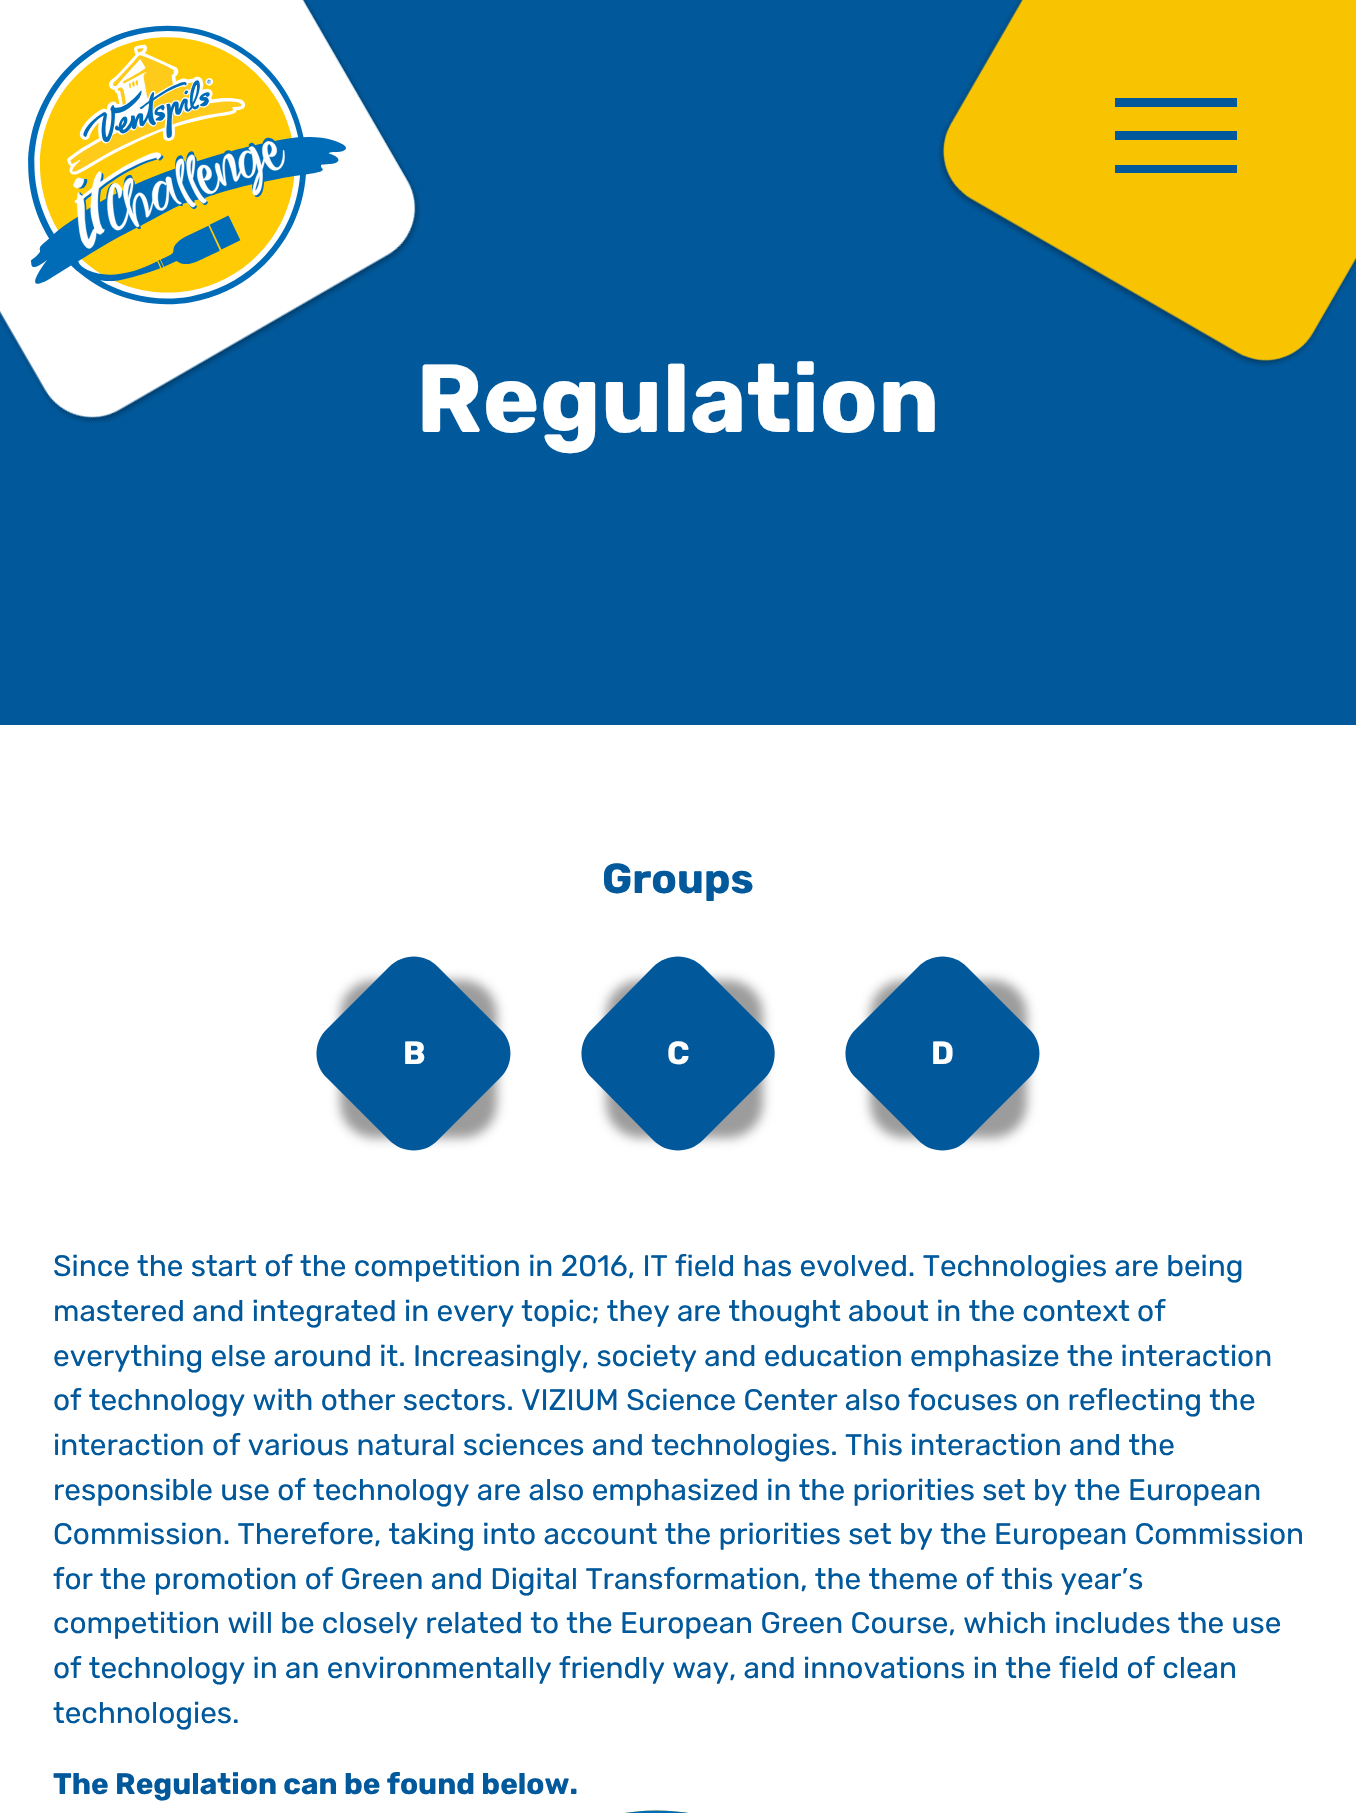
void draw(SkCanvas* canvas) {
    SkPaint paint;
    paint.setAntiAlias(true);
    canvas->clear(0xFFFFFFFF);
    paint.setColor(0xFF01599C);
    canvas->drawRect(SkRect::MakeXYWH(0, 0, 1356, 725), paint);
    canvas->drawImageRect(SkImages::DeferredFromEncodedData(SkData::MakeFromFileName("img1.png")), SkRect::MakeXYWH(0, 0, 421, 424), SkSamplingOptions());
    canvas->drawImageRect(SkImages::DeferredFromEncodedData(SkData::MakeFromFileName("img2.png")), SkRect::MakeXYWH(28, 25, 318, 280), SkSamplingOptions());
    canvas->drawImageRect(SkImages::DeferredFromEncodedData(SkData::MakeFromFileName("img3.png")), SkRect::MakeXYWH(937, 0, 419, 368), SkSamplingOptions());
    canvas->drawRect(SkRect::MakeXYWH(1115, 98, 122, 9), paint);
    canvas->drawRect(SkRect::MakeXYWH(1115, 131, 122, 9), paint);
    canvas->drawRect(SkRect::MakeXYWH(1115, 165, 122, 8), paint);
    SkFont font1(fontMgr->matchFamilyStyle("Rubik", SkFontStyle::Bold()), 96.25f);
    font1.setSubpixel(true);
    paint.setColor(0xFFFFFFFF);
    canvas->drawString("Regulation", 416, 432, font1, paint);
    SkFont font2(fontMgr->matchFamilyStyle("Rubik", SkFontStyle::Bold()), 42);
    font2.setSubpixel(true);
    paint.setColor(0xFF01599C);
    canvas->drawString("Groups", 602, 893, font2, paint);
    paint.setColor(0x63000000);
    paint.setMaskFilter(SkMaskFilter::MakeBlur(kNormal_SkBlurStyle, 5.5f));
    canvas->drawRoundRect(SkRect::MakeXYWH(340, 980, 157, 158), 35, 35, paint);
    paint.setMaskFilter(nullptr);
    paint.setColor(0xFF01599C);
    canvas->drawPath(SkPathBuilder().moveTo(438, 967).lineTo(500, 1029).cubicTo(514, 1042, 514, 1065, 500, 1078).lineTo(438, 1140).cubicTo(425, 1154, 403, 1154, 389, 1140).lineTo(327, 1078).cubicTo(313, 1065, 313, 1042, 327, 1029).lineTo(389, 967).cubicTo(403, 953, 425, 953, 438, 967).close().detach(), paint);
    SkFont font3(fontMgr->matchFamilyStyle("Rubik", SkFontStyle::Bold()), 32);
    font3.setSubpixel(true);
    paint.setColor(0xFFFFFFFF);
    canvas->drawString("B", 403, 1064, font3, paint);
    paint.setColor(0x63000000);
    paint.setMaskFilter(SkMaskFilter::MakeBlur(kNormal_SkBlurStyle, 5.5f));
    canvas->drawRoundRect(SkRect::MakeXYWH(606, 980, 157, 158), 35, 35, paint);
    paint.setMaskFilter(nullptr);
    paint.setColor(0xFF01599C);
    canvas->drawPath(SkPathBuilder().moveTo(703, 967).lineTo(765, 1029).cubicTo(778, 1042, 778, 1065, 765, 1078).lineTo(703, 1140).cubicTo(689, 1154, 667, 1154, 653, 1140).lineTo(592, 1078).cubicTo(578, 1065, 578, 1042, 592, 1029).lineTo(653, 967).cubicTo(667, 953, 689, 953, 703, 967).close().detach(), paint);
    paint.setColor(0xFFFFFFFF);
    canvas->drawString("C", 667, 1064, font3, paint);
    paint.setColor(0x63000000);
    paint.setMaskFilter(SkMaskFilter::MakeBlur(kNormal_SkBlurStyle, 5.5f));
    canvas->drawRoundRect(SkRect::MakeXYWH(870, 980, 157, 158), 35, 35, paint);
    paint.setMaskFilter(nullptr);
    paint.setColor(0xFF01599C);
    canvas->drawPath(SkPathBuilder().moveTo(967, 967).lineTo(1029, 1029).cubicTo(1043, 1042, 1043, 1065, 1029, 1078).lineTo(967, 1140).cubicTo(954, 1154, 931, 1154, 918, 1140).lineTo(856, 1078).cubicTo(842, 1065, 842, 1042, 856, 1029).lineTo(918, 967).cubicTo(931, 953, 954, 953, 967, 967).close().detach(), paint);
    paint.setColor(0xFFFFFFFF);
    canvas->drawString("D", 931, 1064, font3, paint);
    SkFont font4(fontMgr->matchFamilyStyle("Rubik", SkFontStyle::Normal()), 29.75f);
    font4.setSubpixel(true);
    paint.setColor(0xFF01599C);
    canvas->drawString("Since the start of the competition in 2016, IT field has evolved. Technologies are being", 53, 1276, font4, paint);
    canvas->drawString("mastered and integrated in every topic; they are thought about in the context of", 53, 1321, font4, paint);
    canvas->drawString("everything else around it. Increasingly, society and education emphasize the interaction", 53, 1366, font4, paint);
    canvas->drawString("of technology with other sectors. VIZIUM Science Center also focuses on reflecting the", 53, 1410, font4, paint);
    canvas->drawString("interaction of various natural sciences and technologies. This interaction and the", 53, 1455, font4, paint);
    canvas->drawString("responsible use of technology are also emphasized in the priorities set by the European", 53, 1500, font4, paint);
    canvas->drawString("Commission. Therefore, taking into account the priorities set by the European Commission", 53, 1544, font4, paint);
    canvas->drawString("for the promotion of Green and Digital Transformation, the theme of this year’s", 53, 1589, font4, paint);
    canvas->drawString("competition will be closely related to the European Green Course, which includes the use", 53, 1633, font4, paint);
    canvas->drawString("of technology in an environmentally friendly way, and innovations in the field of clean", 53, 1678, font4, paint);
    canvas->drawString("technologies.", 53, 1723, font4, paint);
    SkFont font5(fontMgr->matchFamilyStyle("Rubik", SkFontStyle::Bold()), 29.75f);
    font5.setSubpixel(true);
    canvas->drawString("The Regulation can be found below.", 53, 1794, font5, paint);
    canvas->drawImageRect(SkImages::DeferredFromEncodedData(SkData::MakeFromFileName("img4.png")), SkRect::MakeXYWH(624, 1810, 64, 3), SkSamplingOptions());
}
